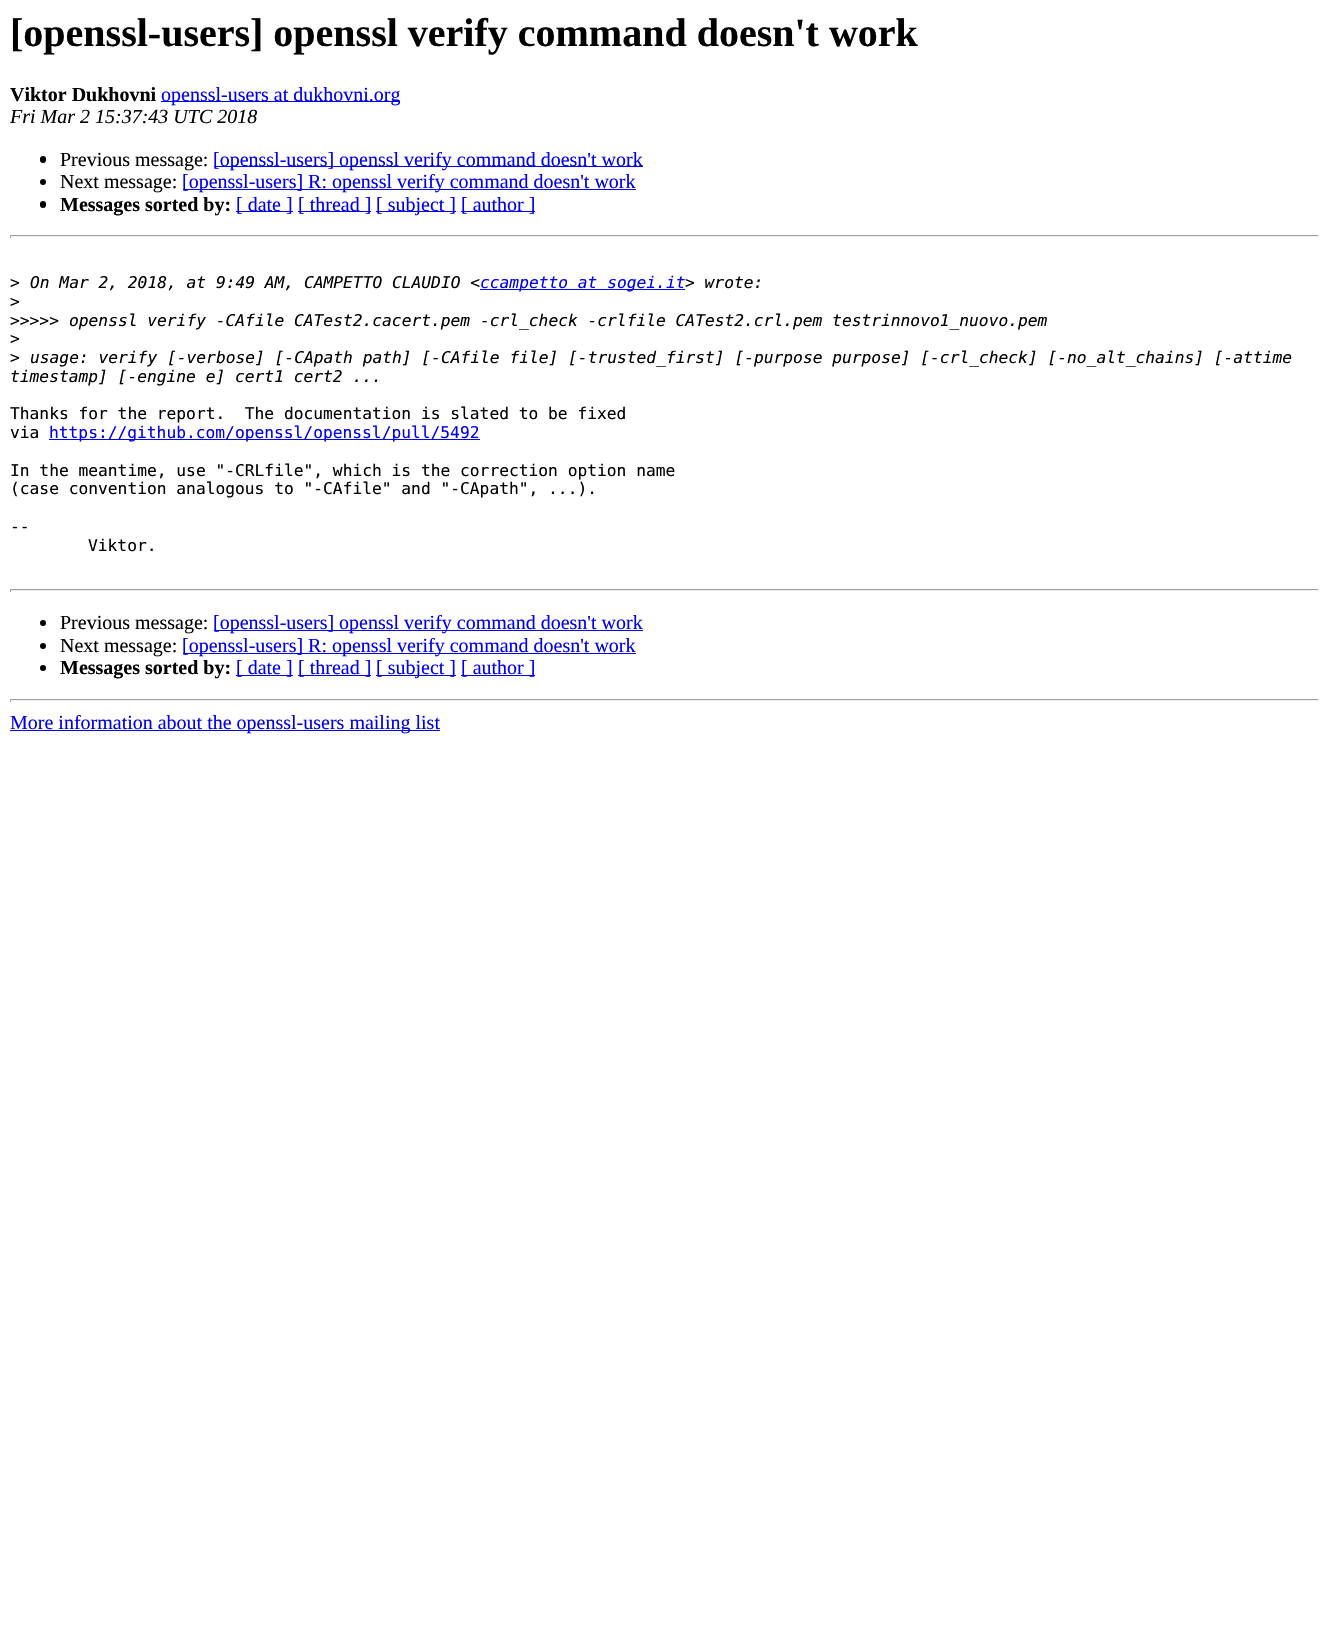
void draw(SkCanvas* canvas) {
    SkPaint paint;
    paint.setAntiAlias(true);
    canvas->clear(0xFFFFFFFF);
    SkFont font1(fontMgr->matchFamilyStyle("Liberation Serif", SkFontStyle::Bold()), 40);
    font1.setSubpixel(true);
    paint.setColor(0xFF000000);
    canvas->drawString("[openssl-users] openssl verify command doesn't work", 10, 46, font1, paint);
    SkFont font2(fontMgr->matchFamilyStyle("Liberation Serif", SkFontStyle::Bold()), 20);
    font2.setSubpixel(true);
    canvas->drawString("Viktor Dukhovni", 10, 101, font2, paint);
    paint.setColor(0xFF0000EE);
    canvas->drawRect(SkRect::MakeXYWH(161, 101, 239, 1), paint);
    SkFont font3(fontMgr->matchFamilyStyle("Liberation Serif", SkFontStyle::Normal()), 20);
    font3.setSubpixel(true);
    canvas->drawString("openssl-users at dukhovni.org", 161, 101, font3, paint);
    SkFont font4(fontMgr->matchFamilyStyle("Liberation Serif", SkFontStyle::Italic()), 20);
    font4.setSubpixel(true);
    paint.setColor(0xFF000000);
    canvas->drawString("Fri Mar 2 15:37:43 UTC 2018", 10, 123, font4, paint);
    canvas->drawRoundRect(SkRect::MakeXYWH(40, 156, 6, 7), 3, 3, paint);
    canvas->drawString("Previous message:", 60, 166, font3, paint);
    paint.setColor(0xFF0000EE);
    canvas->drawRect(SkRect::MakeXYWH(214, 166, 429, 1), paint);
    canvas->drawString("[openssl-users] openssl verify command doesn't work", 213, 166, font3, paint);
    paint.setColor(0xFF000000);
    canvas->drawCircle(43, 182, 3, paint);
    canvas->drawString("Next message:", 60, 188, font3, paint);
    paint.setColor(0xFF0000EE);
    canvas->drawRect(SkRect::MakeXYWH(183, 189, 453, 1), paint);
    canvas->drawString("[openssl-users] R: openssl verify command doesn't work", 182, 188, font3, paint);
    paint.setColor(0xFF000000);
    canvas->drawRoundRect(SkRect::MakeXYWH(40, 201, 6, 7), 3, 3, paint);
    canvas->drawString("Messages sorted by:", 60, 211, font2, paint);
    paint.setColor(0xFF0000EE);
    canvas->drawRect(SkRect::MakeXYWH(236, 211, 57, 1), paint);
    canvas->drawString("[ date ]", 236, 211, font3, paint);
    canvas->drawRect(SkRect::MakeXYWH(298, 211, 73, 1), paint);
    canvas->drawString("[ thread ]", 298, 211, font3, paint);
    canvas->drawRect(SkRect::MakeXYWH(376, 211, 80, 1), paint);
    canvas->drawString("[ subject ]", 376, 211, font3, paint);
    canvas->drawRect(SkRect::MakeXYWH(461, 211, 74, 1), paint);
    canvas->drawString("[ author ]", 461, 211, font3, paint);
    paint.setColor(0xFF9F9F9F);
    canvas->drawRect(SkRect::MakeXYWH(10, 235, 1309, 1), paint);
    paint.setColor(0xFFEEEEEE);
    canvas->drawRect(SkRect::MakeXYWH(1318, 235, 1, 3), paint);
    canvas->drawRect(SkRect::MakeXYWH(10, 236, 1309, 1), paint);
    paint.setColor(0xFF9F9F9F);
    canvas->drawRect(SkRect::MakeXYWH(10, 235, 1, 3), paint);
    SkFont font5(fontMgr->matchFamilyStyle("DejaVu Sans Mono", SkFontStyle::Normal()), 16.25f);
    font5.setSubpixel(true);
    paint.setColor(0xFF000000);
    canvas->drawString(">", 10, 288, font5, paint);
    SkFont font6(fontMgr->matchFamilyStyle("DejaVu Sans Mono", SkFontStyle::Italic()), 16.25f);
    font6.setSubpixel(true);
    canvas->drawString("On Mar 2, 2018, at 9:49 AM, CAMPETTO CLAUDIO <", 30, 288, font6, paint);
    paint.setColor(0xFF0000EE);
    canvas->drawRect(SkRect::MakeXYWH(480, 289, 205, 1), paint);
    canvas->drawString("ccampetto at sogei.it", 480, 288, font6, paint);
    paint.setColor(0xFF000000);
    canvas->drawString("> wrote:", 685, 288, font6, paint);
    canvas->drawString(">", 10, 307, font5, paint);
    canvas->drawString(">>>>>", 10, 326, font5, paint);
    canvas->drawString("openssl verify -CAfile CATest2.cacert.pem -crl_check -crlfile CATest2.crl.pem testrinnovo1_nuovo.pem", 69, 326, font6, paint);
    canvas->drawString(">", 10, 344, font5, paint);
    canvas->drawString(">", 10, 363, font5, paint);
    canvas->drawString("usage: verify [-verbose] [-CApath path] [-CAfile file] [-trusted_first] [-purpose purpose] [-crl_check] [-no_alt_chains] [-attime", 30, 363, font6, paint);
    canvas->drawString("timestamp] [-engine e] cert1 cert2 ...", 10, 382, font6, paint);
    canvas->drawString("Thanks for the report.  The documentation is slated to be fixed", 10, 419, font5, paint);
    canvas->drawString("via", 10, 438, font5, paint);
    paint.setColor(0xFF0000EE);
    canvas->drawRect(SkRect::MakeXYWH(49, 439, 431, 1), paint);
    canvas->drawString("https://github.com/openssl/openssl/pull/5492", 49, 438, font5, paint);
    paint.setColor(0xFF000000);
    canvas->drawString("In the meantime, use \"-CRLfile\", which is the correction option name", 10, 476, font5, paint);
    canvas->drawString("(case convention analogous to \"-CAfile\" and \"-CApath\", ...).", 10, 494, font5, paint);
    canvas->drawString("--", 10, 532, font5, paint);
    canvas->drawString("Viktor.", 88, 551, font5, paint);
    paint.setColor(0xFF9F9F9F);
    canvas->drawRect(SkRect::MakeXYWH(10, 589, 1309, 1), paint);
    paint.setColor(0xFFEEEEEE);
    canvas->drawRect(SkRect::MakeXYWH(1318, 589, 1, 3), paint);
    canvas->drawRect(SkRect::MakeXYWH(10, 590, 1309, 1), paint);
    paint.setColor(0xFF9F9F9F);
    canvas->drawRect(SkRect::MakeXYWH(10, 589, 1, 3), paint);
    paint.setColor(0xFF000000);
    canvas->drawCircle(43, 623, 3, paint);
    canvas->drawString("Previous message:", 60, 629, font3, paint);
    paint.setColor(0xFF0000EE);
    canvas->drawRect(SkRect::MakeXYWH(214, 630, 429, 1), paint);
    canvas->drawString("[openssl-users] openssl verify command doesn't work", 213, 629, font3, paint);
    paint.setColor(0xFF000000);
    canvas->drawCircle(43, 646, 3, paint);
    canvas->drawString("Next message:", 60, 652, font3, paint);
    paint.setColor(0xFF0000EE);
    canvas->drawRect(SkRect::MakeXYWH(183, 653, 453, 1), paint);
    canvas->drawString("[openssl-users] R: openssl verify command doesn't work", 182, 652, font3, paint);
    paint.setColor(0xFF000000);
    canvas->drawCircle(43, 668, 3, paint);
    canvas->drawString("Messages sorted by:", 60, 674, font2, paint);
    paint.setColor(0xFF0000EE);
    canvas->drawRect(SkRect::MakeXYWH(236, 675, 57, 1), paint);
    canvas->drawString("[ date ]", 236, 674, font3, paint);
    canvas->drawRect(SkRect::MakeXYWH(298, 675, 73, 1), paint);
    canvas->drawString("[ thread ]", 298, 674, font3, paint);
    canvas->drawRect(SkRect::MakeXYWH(376, 675, 80, 1), paint);
    canvas->drawString("[ subject ]", 376, 674, font3, paint);
    canvas->drawRect(SkRect::MakeXYWH(461, 675, 74, 1), paint);
    canvas->drawString("[ author ]", 461, 674, font3, paint);
    paint.setColor(0xFF9F9F9F);
    canvas->drawRect(SkRect::MakeXYWH(10, 699, 1309, 1), paint);
    paint.setColor(0xFFEEEEEE);
    canvas->drawRect(SkRect::MakeXYWH(1318, 699, 1, 3), paint);
    canvas->drawRect(SkRect::MakeXYWH(10, 700, 1309, 1), paint);
    paint.setColor(0xFF9F9F9F);
    canvas->drawRect(SkRect::MakeXYWH(10, 699, 1, 3), paint);
    paint.setColor(0xFF0000EE);
    canvas->drawRect(SkRect::MakeXYWH(10, 730, 430, 1), paint);
    canvas->drawString("More information about the openssl-users mailing list", 10, 729, font3, paint);
}
